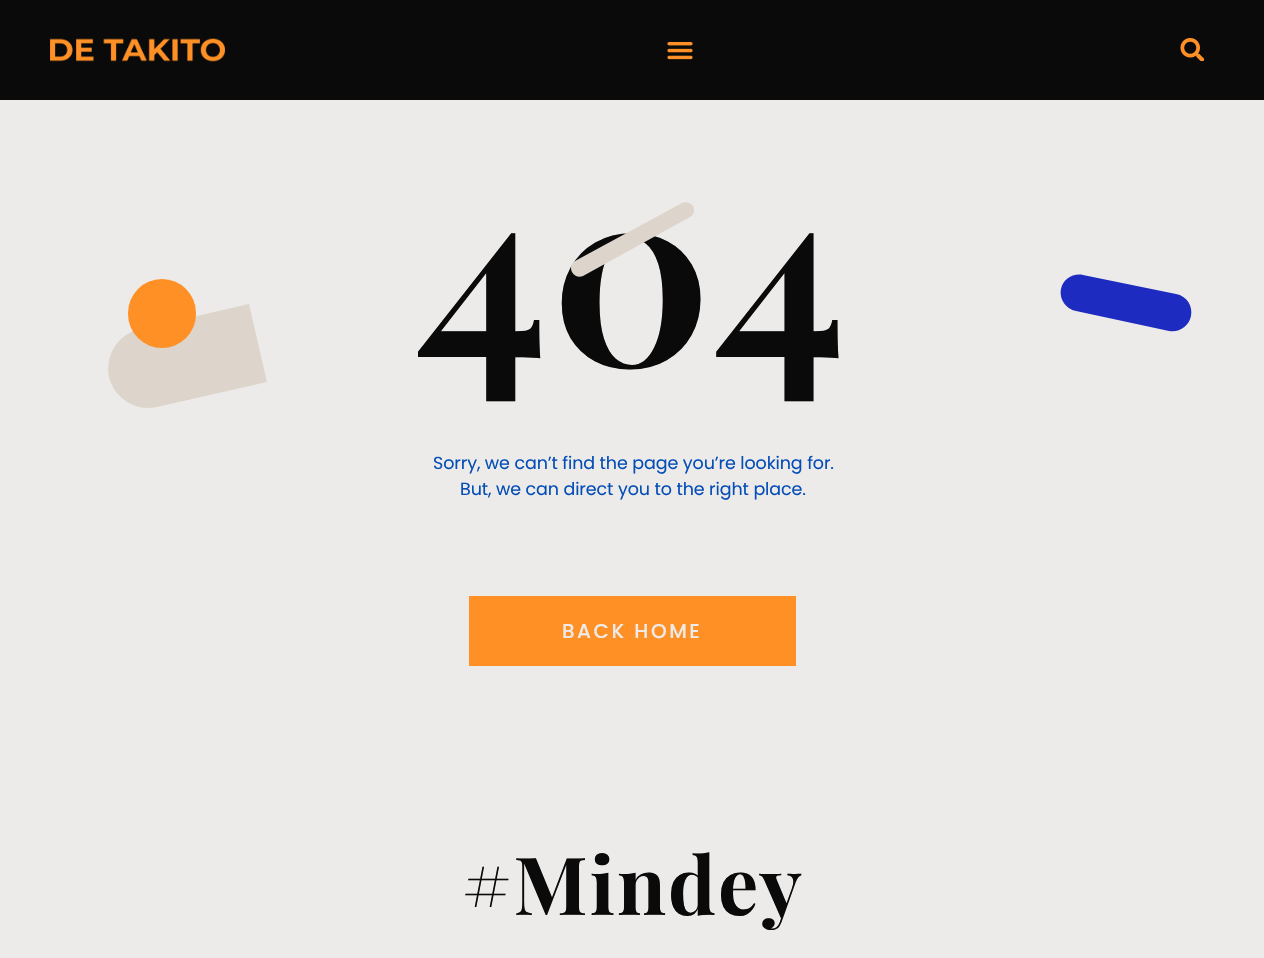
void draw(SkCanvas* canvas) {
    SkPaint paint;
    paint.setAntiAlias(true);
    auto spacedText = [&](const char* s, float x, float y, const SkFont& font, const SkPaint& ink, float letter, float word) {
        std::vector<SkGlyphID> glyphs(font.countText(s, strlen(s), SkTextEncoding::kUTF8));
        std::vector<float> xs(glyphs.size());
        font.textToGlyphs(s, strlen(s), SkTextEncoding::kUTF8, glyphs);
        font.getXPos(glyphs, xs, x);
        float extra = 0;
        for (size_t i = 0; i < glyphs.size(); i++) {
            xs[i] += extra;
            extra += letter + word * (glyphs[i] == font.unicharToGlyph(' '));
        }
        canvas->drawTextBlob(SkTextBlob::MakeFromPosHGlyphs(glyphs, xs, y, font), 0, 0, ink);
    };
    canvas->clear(0xFFEDEBE9);
    paint.setColor(0xFF0A0A0A);
    canvas->drawRect(SkRect::MakeXYWH(0, 0, 1264, 100), paint);
    canvas->drawImageRect(SkImages::DeferredFromEncodedData(SkData::MakeFromFileName("img1.png")), SkRect::MakeXYWH(50, 38, 175, 24), SkSamplingOptions());
    canvas->drawImageRect(SkImages::DeferredFromEncodedData(SkData::MakeFromFileName("img2.png")), SkRect::MakeXYWH(667, 42, 26, 18), SkSamplingOptions());
    canvas->drawImageRect(SkImages::DeferredFromEncodedData(SkData::MakeFromFileName("img3.png")), SkRect::MakeXYWH(1180, 38, 24, 23), SkSamplingOptions());
    SkFont font1(fontMgr->matchFamilyStyle("Playfair Display", SkFontStyle::Bold()), 250);
    font1.setSubpixel(true);
    spacedText("404", 416, 366, font1, paint, 2.5f, 0);
    paint.setColor(0xFFDDD5CC);
    canvas->drawPath(SkPathBuilder().moveTo(575, 261).lineTo(682, 203).cubicTo(686, 201, 691, 203, 693, 206).cubicTo(695, 210, 694, 215, 690, 217).lineTo(583, 276).cubicTo(579, 278, 574, 276, 572, 272).cubicTo(570, 268, 571, 263, 575, 261).close().detach(), paint);
    canvas->drawPath(SkPathBuilder().moveTo(140, 329).lineTo(249, 304).lineTo(267, 382).lineTo(157, 407).cubicTo(136, 412, 114, 398, 109, 377).cubicTo(105, 355, 118, 334, 140, 329).close().detach(), paint);
    paint.setColor(0xFFFF9025);
    canvas->drawRoundRect(SkRect::MakeXYWH(128, 279, 68, 69), 34, 34, paint);
    SkFont font2(fontMgr->matchFamilyStyle("Poppins", SkFontStyle::Normal()), 17.5f);
    font2.setSubpixel(true);
    paint.setColor(0xFF044EB7);
    spacedText("Sorry, we can’t find the page you’re looking for.", 433, 469, font2, paint, -0.1f, 0);
    spacedText("But, we can direct you to the right place.", 460, 495, font2, paint, -0.1f, 0);
    paint.setColor(0xFFFF9025);
    canvas->drawRect(SkRect::MakeXYWH(469, 596, 327, 70), paint);
    SkFont font3(fontMgr->matchFamilyStyle("Poppins", SkFontStyle(500, SkFontStyle::kNormal_Width, SkFontStyle::kUpright_Slant)), 20);
    font3.setSubpixel(true);
    paint.setColor(0xFFEDEBE9);
    spacedText("BACK HOME", 562, 638, font3, paint, 2.5f, 0);
    paint.setColor(0xFF1E2BC0);
    canvas->drawPath(SkPathBuilder().moveTo(1169, 331).lineTo(1076, 311).cubicTo(1066, 309, 1059, 299, 1061, 289).cubicTo(1063, 279, 1073, 273, 1083, 275).lineTo(1176, 294).cubicTo(1187, 296, 1193, 306, 1191, 316).cubicTo(1189, 326, 1179, 333, 1169, 331).close().detach(), paint);
    SkFont font4(fontMgr->matchFamilyStyle("Playfair Display", SkFontStyle::Bold()), 80);
    font4.setSubpixel(true);
    paint.setColor(0xFF0A0A0A);
    spacedText("#Mindey", 462, 915, font4, paint, 2, 0);
}
